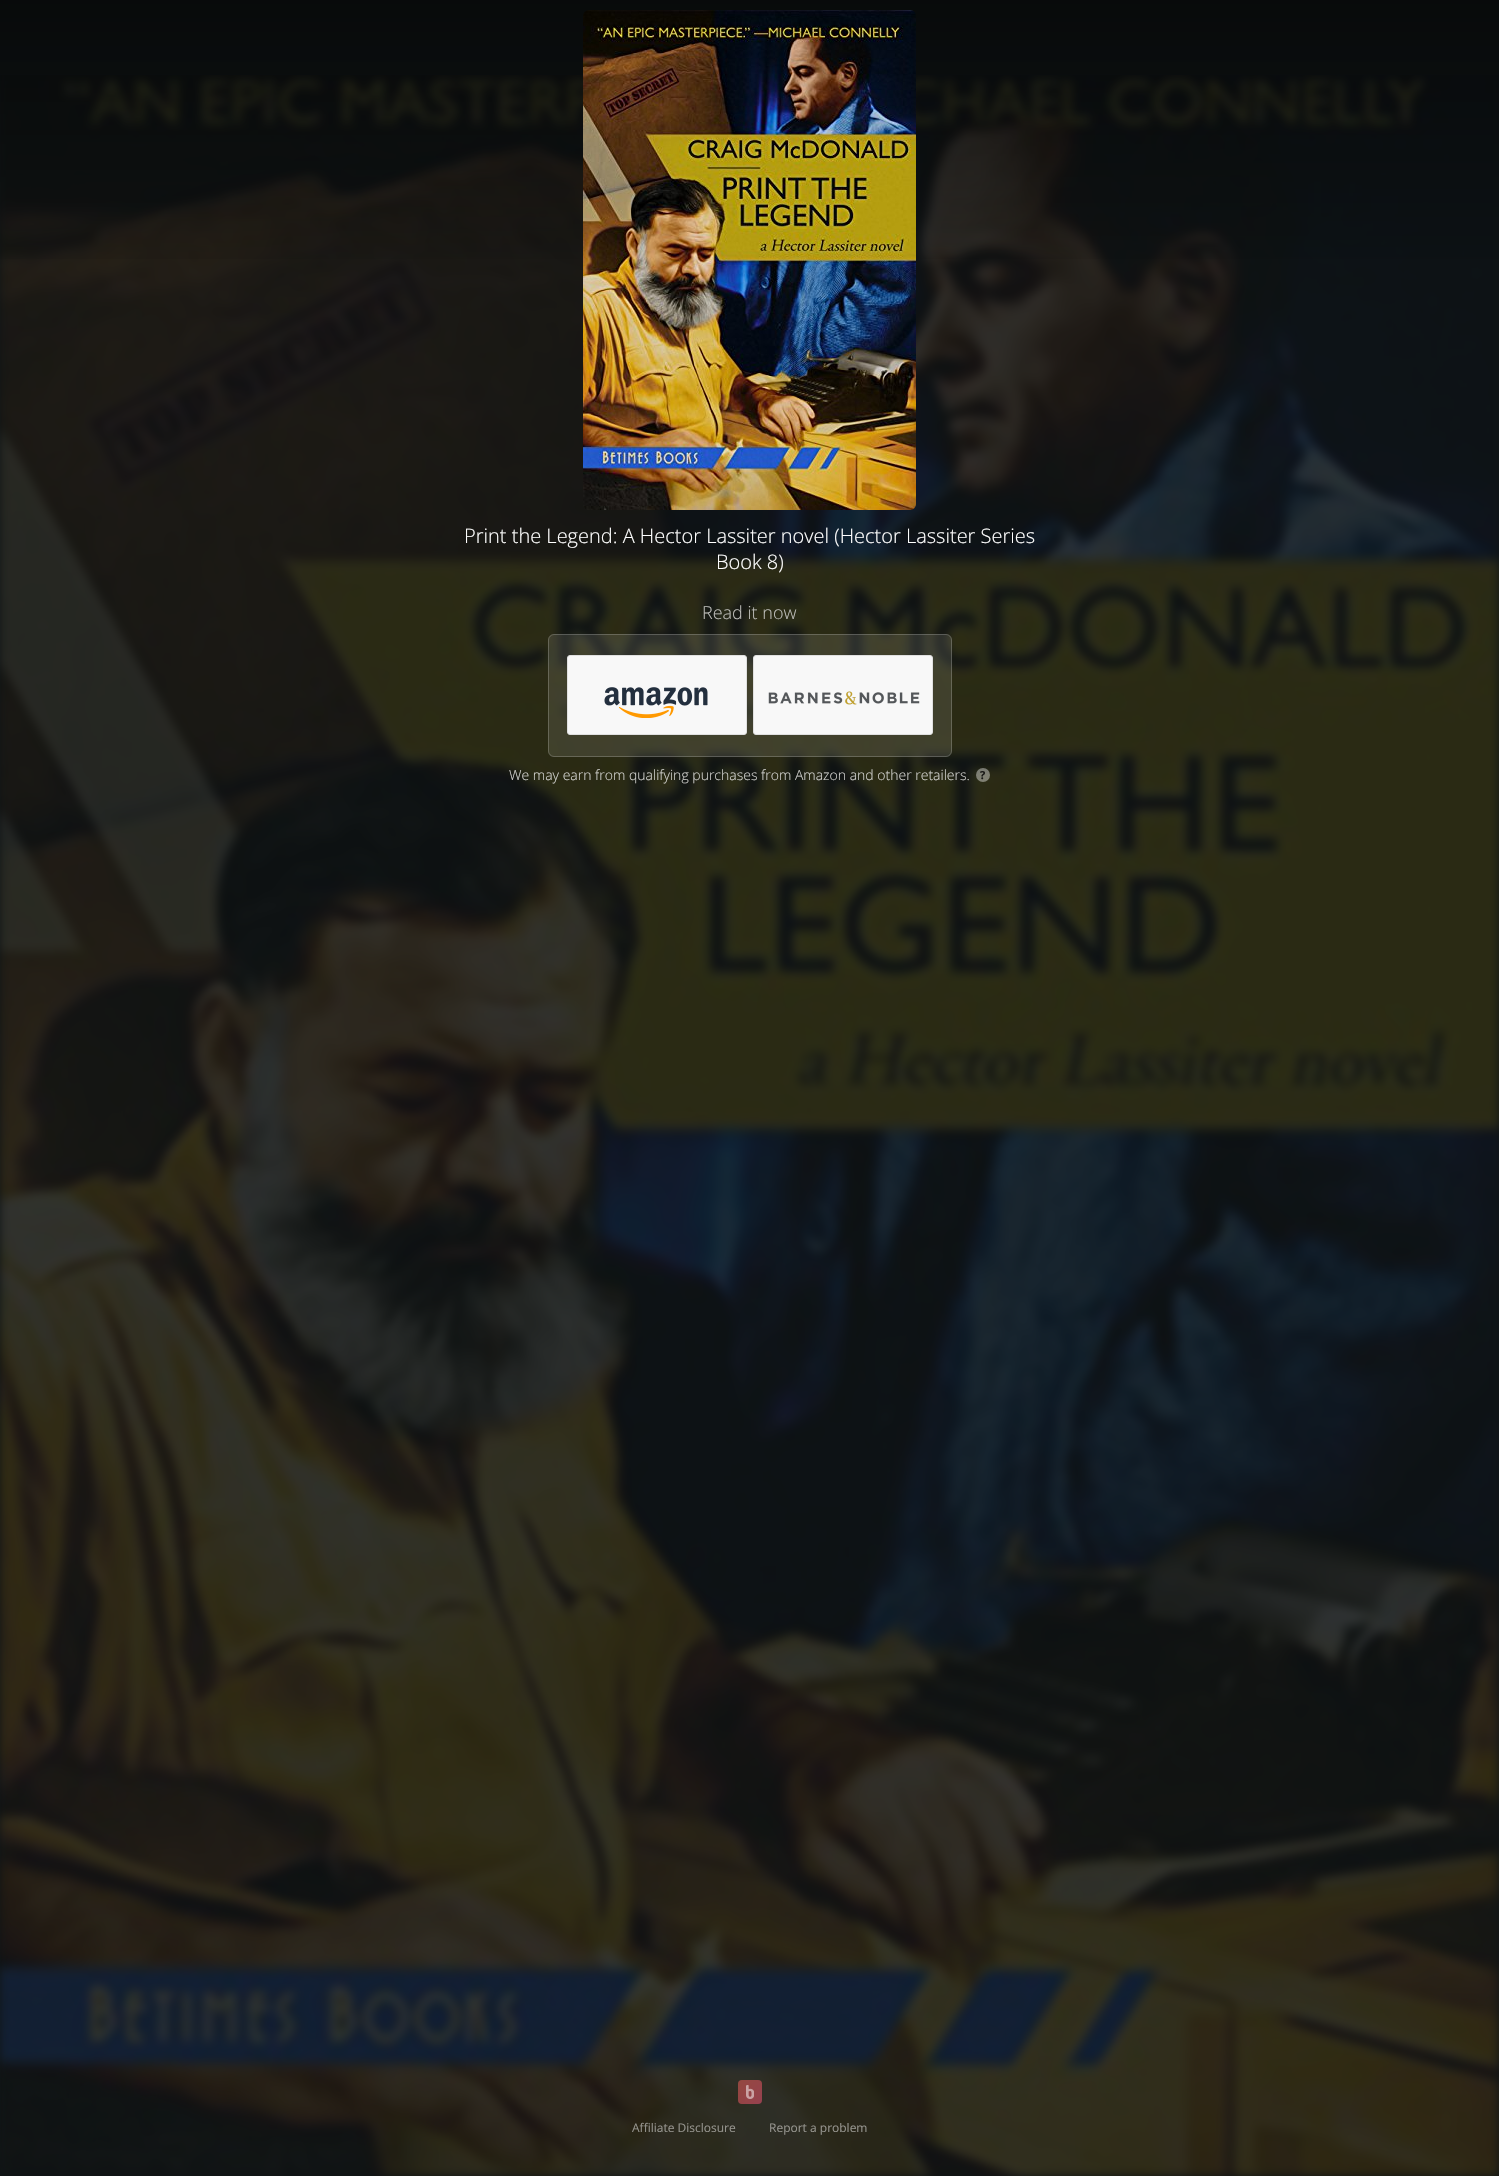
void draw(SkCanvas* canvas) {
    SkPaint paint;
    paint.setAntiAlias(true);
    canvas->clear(0xFF0F1415);
    canvas->drawImageRect(SkImages::DeferredFromEncodedData(SkData::MakeFromFileName("img1.png")), SkRect::MakeXYWH(0, 75, 1499, 2101), SkSamplingOptions());
    {
        const SkColor colors[] = {0x80000000, 0x00000000};
        const float stops[] = {0, 1};
        const SkPoint ends[] = {{750, 0}, {750, 300}};
        paint.setShader(SkGradientShader::MakeLinear(ends, colors, stops, 2, SkTileMode::kClamp));
        paint.setAlpha(255);
    }
    canvas->drawRect(SkRect::MakeXYWH(0, 0, 1499, 259), paint);
    canvas->drawImageRect(SkImages::DeferredFromEncodedData(SkData::MakeFromFileName("img2.png")), SkRect::MakeXYWH(583, 10, 333, 500), SkSamplingOptions());
    SkFont font1(fontMgr->matchFamilyStyle("Open Sans", SkFontStyle(300, SkFontStyle::kNormal_Width, SkFontStyle::kUpright_Slant)), 20);
    font1.setSubpixel(true);
    paint.setShader(nullptr);
    paint.setColor(0xFFFFFFFF);
    canvas->drawString("Print the Legend: A Hector Lassiter novel (Hector Lassiter Series", 464, 543, font1, paint);
    canvas->drawString("Book 8)", 716, 569, font1, paint);
    SkFont font2(fontMgr->matchFamilyStyle("Open Sans", SkFontStyle(300, SkFontStyle::kNormal_Width, SkFontStyle::kUpright_Slant)), 18);
    font2.setSubpixel(true);
    paint.setColor(0xFFBDBDB9);
    canvas->drawString("Read it now", 702, 619, font2, paint);
    paint.setColor(0x1AFFFFFF);
    canvas->drawRoundRect(SkRect::MakeXYWH(548, 634, 404, 123), 6, 6, paint);
    paint.setStyle(SkPaint::kStroke_Style);
    paint.setStrokeWidth(1);
    paint.setColor(0x33FFFFFF);
    canvas->drawRoundRect(SkRect::MakeXYWH(548.5f, 634.5f, 403, 122), 5.5f, 5.5f, paint);
    paint.setStyle(SkPaint::kFill_Style);
    paint.setColor(0xFFF8F8F8);
    canvas->drawRoundRect(SkRect::MakeXYWH(567.5f, 655.5f, 179, 79), 2.5f, 2.5f, paint);
    paint.setStyle(SkPaint::kStroke_Style);
    paint.setColor(0xFFE0E0E0);
    canvas->drawRoundRect(SkRect::MakeXYWH(567.5f, 655.5f, 179, 79), 2.5f, 2.5f, paint);
    canvas->drawImageRect(SkImages::DeferredFromEncodedData(SkData::MakeFromFileName("img3.png")), SkRect::MakeXYWH(604, 687, 104, 31), SkSamplingOptions());
    paint.setStyle(SkPaint::kFill_Style);
    paint.setColor(0xFFF8F8F8);
    canvas->drawRoundRect(SkRect::MakeXYWH(753.5f, 655.5f, 179, 79), 2.5f, 2.5f, paint);
    paint.setStyle(SkPaint::kStroke_Style);
    paint.setColor(0xFFE0E0E0);
    canvas->drawRoundRect(SkRect::MakeXYWH(753.5f, 655.5f, 179, 79), 2.5f, 2.5f, paint);
    canvas->drawImageRect(SkImages::DeferredFromEncodedData(SkData::MakeFromFileName("img4.png")), SkRect::MakeXYWH(768, 691, 152, 14), SkSamplingOptions());
    SkFont font3(fontMgr->matchFamilyStyle("Open Sans", SkFontStyle(300, SkFontStyle::kNormal_Width, SkFontStyle::kUpright_Slant)), 14);
    font3.setSubpixel(true);
    paint.setStyle(SkPaint::kFill_Style);
    paint.setColor(0xFFD3D3D0);
    canvas->drawString("We may earn from qualifying purchases from Amazon and other retailers.", 509, 780, font3, paint);
    paint.setColor(0x66FFFFFF);
    canvas->drawCircle(983, 775, 7, paint);
    SkFont font4(fontMgr->matchFamilyStyle("Open Sans", SkFontStyle::Bold()), 11);
    font4.setSubpixel(true);
    paint.setColor(0xFF191917);
    canvas->drawString("?", 980, 779, font4, paint);
    {
        const SkColor colors[] = {0x80F96259, 0x80FF537A};
        const float stops[] = {0, 1};
        const SkPoint ends[] = {{738, 2080}, {762, 2104}};
        paint.setShader(SkGradientShader::MakeLinear(ends, colors, stops, 2, SkTileMode::kClamp));
        paint.setAlpha(255);
    }
    canvas->drawRoundRect(SkRect::MakeXYWH(738, 2080, 24, 24), 4, 4, paint);
    canvas->drawImageRect(SkImages::DeferredFromEncodedData(SkData::MakeFromFileName("img5.png")), SkRect::MakeXYWH(746, 2085, 8, 14), SkSamplingOptions());
    SkFont font5(fontMgr->matchFamilyStyle("Open Sans", SkFontStyle::Normal()), 12);
    font5.setSubpixel(true);
    paint.setShader(nullptr);
    paint.setColor(0xFF95948E);
    canvas->drawString("Affiliate Disclosure", 632, 2132, font5, paint);
    canvas->drawString("Report a problem", 769, 2132, font5, paint);
}
